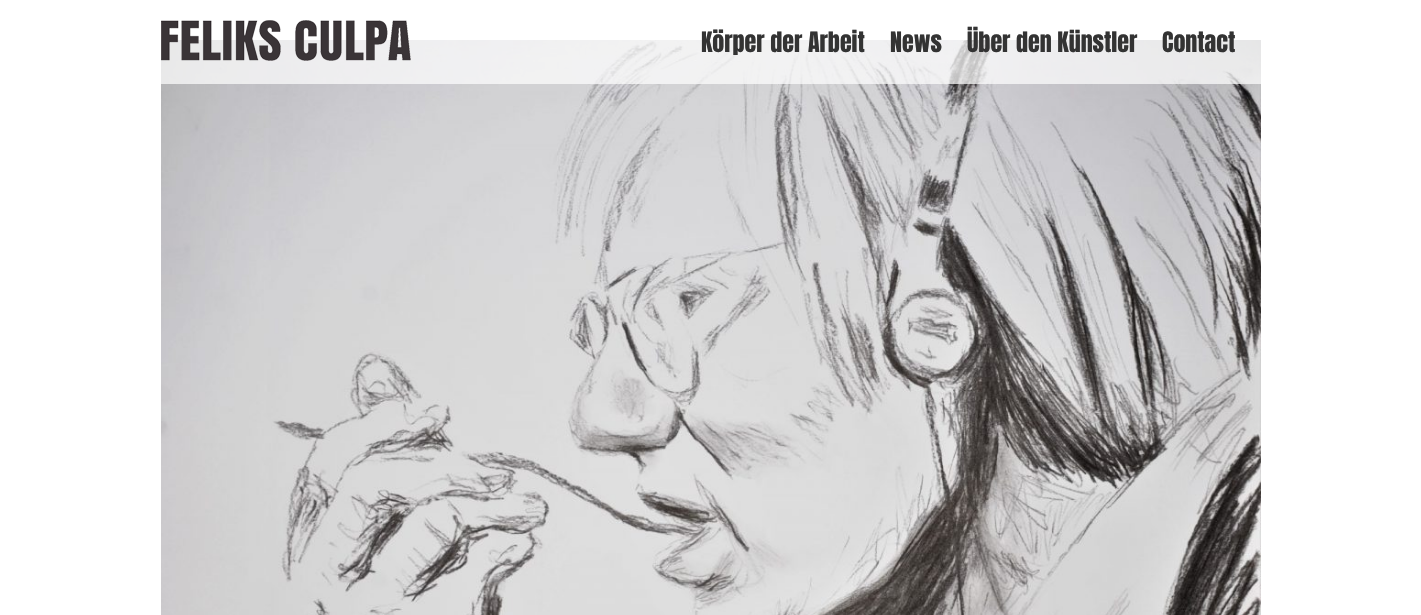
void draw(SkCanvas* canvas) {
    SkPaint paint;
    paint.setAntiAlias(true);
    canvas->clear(0xFFFFFFFF);
    canvas->drawImageRect(SkImages::DeferredFromEncodedData(SkData::MakeFromFileName("img2.png")), SkRect::MakeXYWH(161, 40, 1100, 575), SkSamplingOptions());
    paint.setColor(0xB3FFFFFF);
    canvas->drawRect(SkRect::MakeXYWH(161, 40, 1100, 44), paint);
    canvas->drawImageRect(SkImages::DeferredFromEncodedData(SkData::MakeFromFileName("img1.png")), SkRect::MakeXYWH(161, 20, 250, 41), SkSamplingOptions());
    SkFont font1(fontMgr->matchFamilyStyle("Anton", SkFontStyle::Normal()), 24);
    font1.setSubpixel(true);
    paint.setColor(0xFF333333);
    canvas->drawString("Körper der Arbeit", 701, 52, font1, paint);
    canvas->drawString("News", 890, 52, font1, paint);
    canvas->drawString("Über den Künstler", 967, 52, font1, paint);
    canvas->drawString("Contact", 1162, 52, font1, paint);
}
